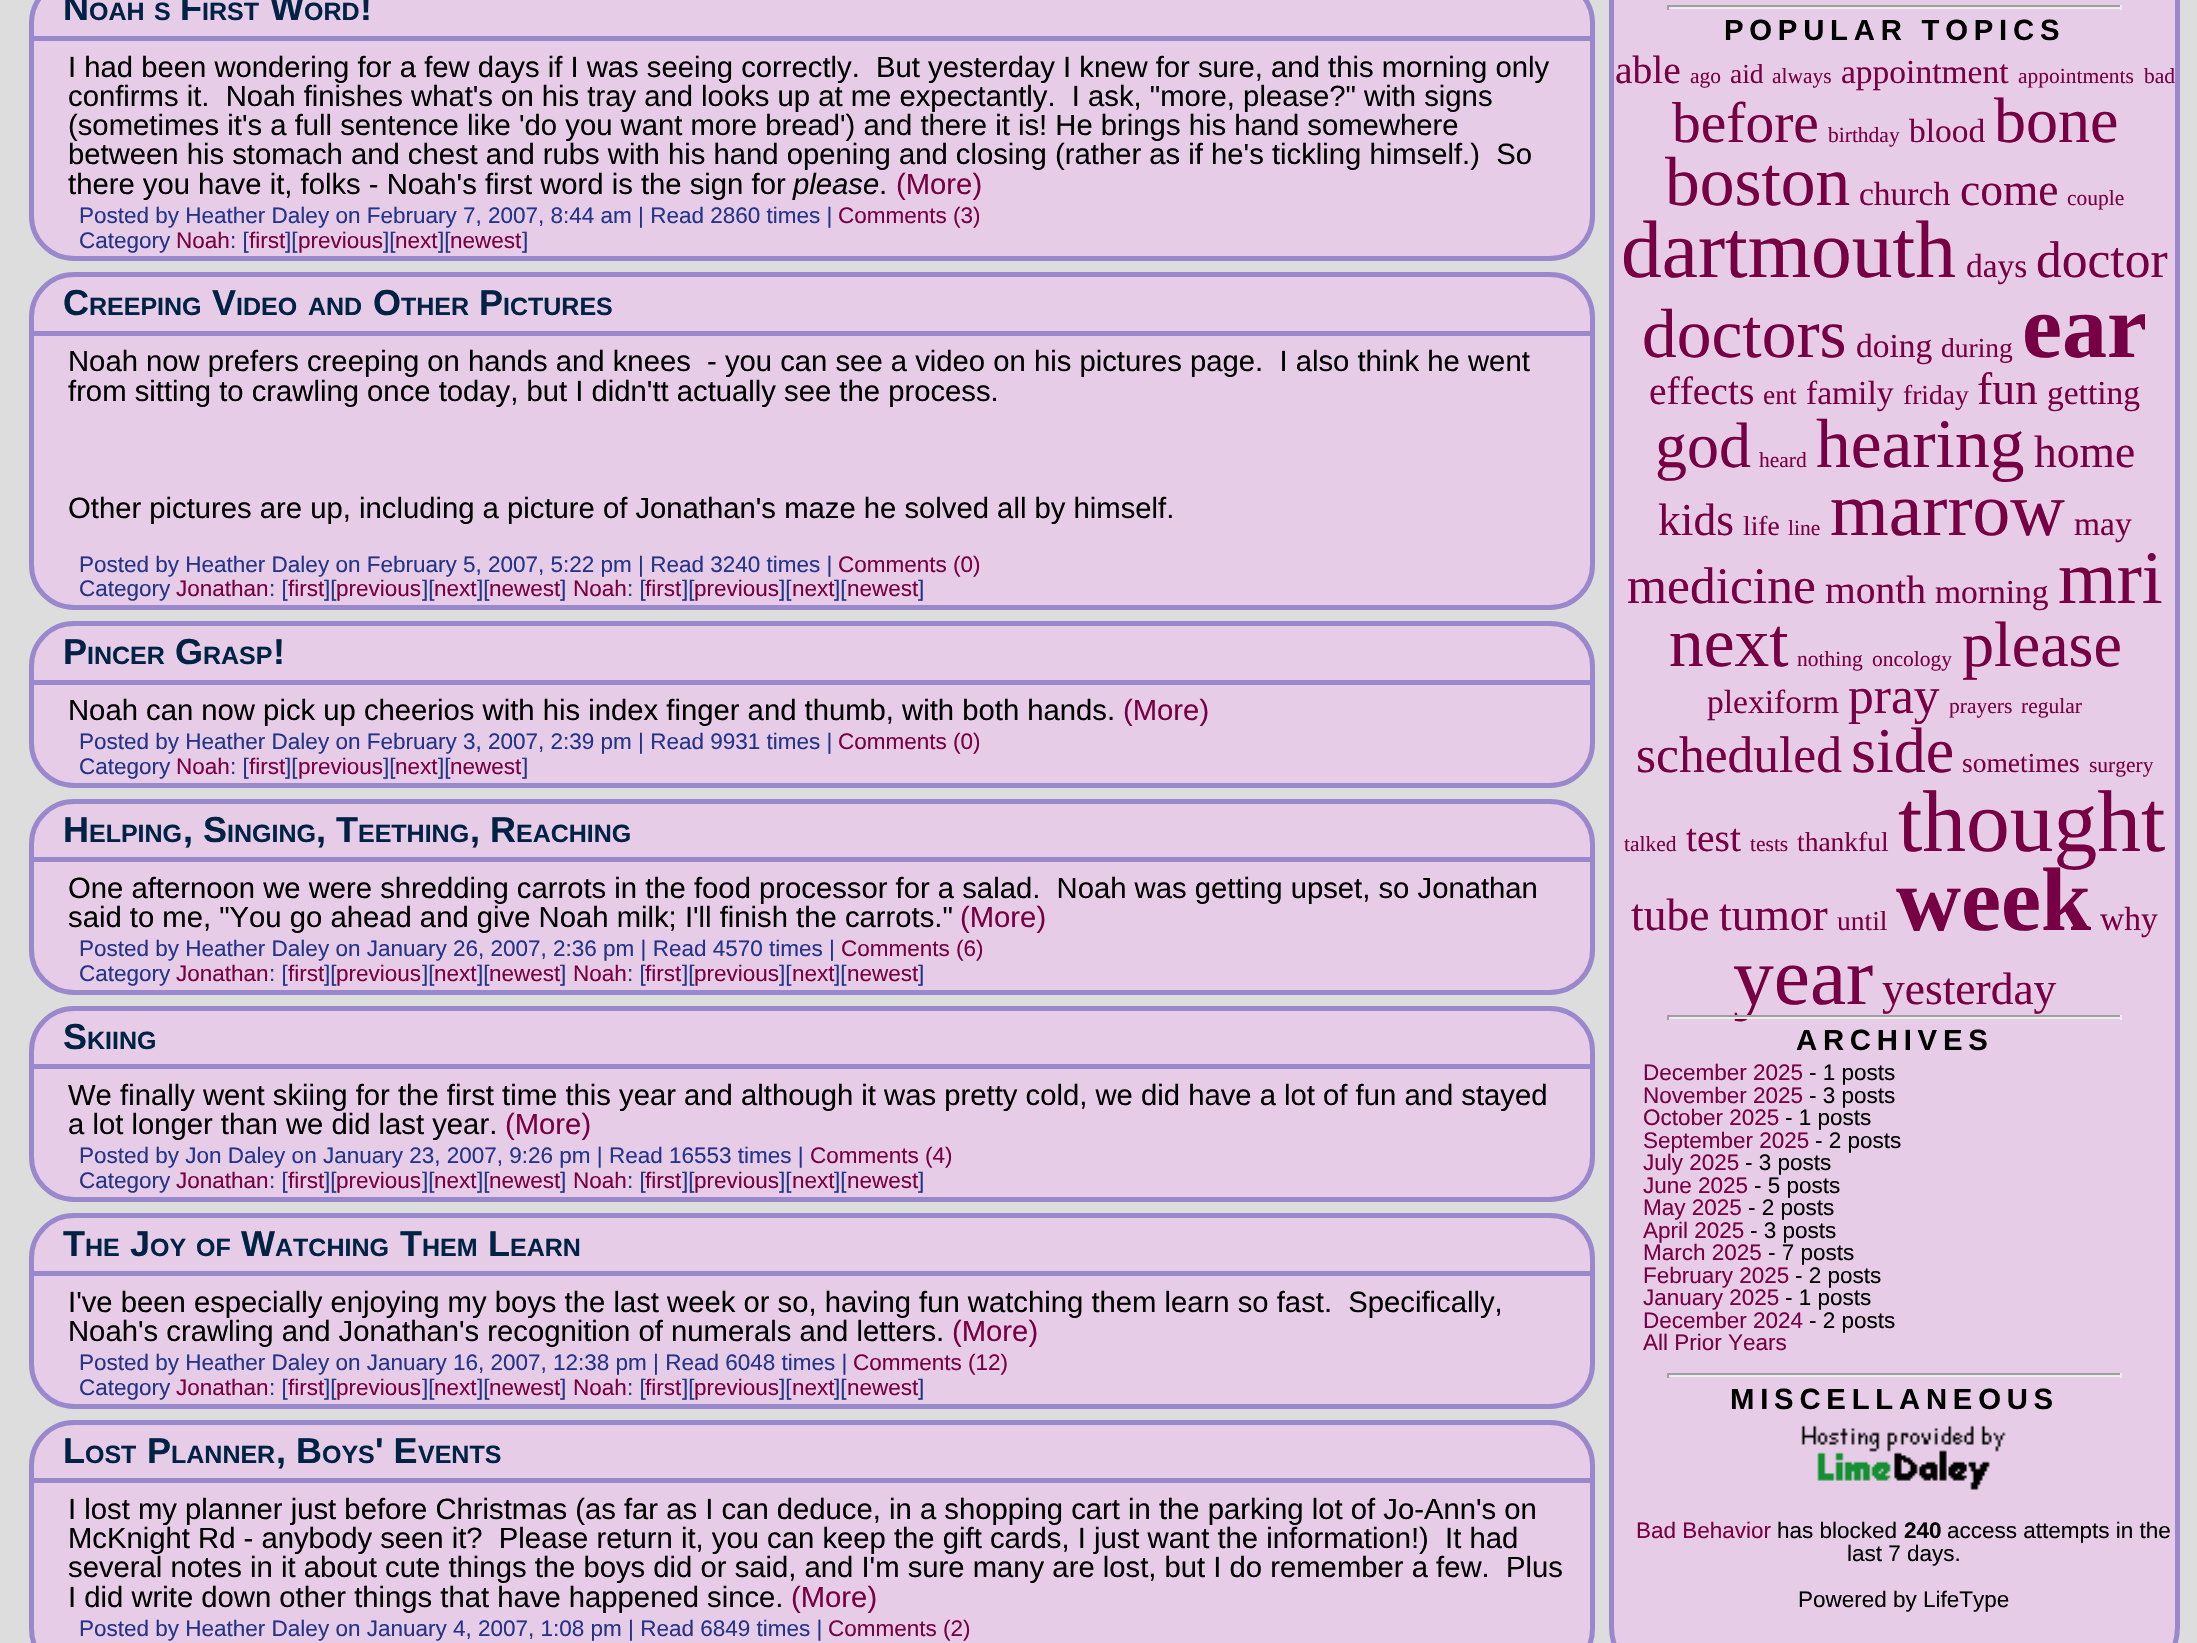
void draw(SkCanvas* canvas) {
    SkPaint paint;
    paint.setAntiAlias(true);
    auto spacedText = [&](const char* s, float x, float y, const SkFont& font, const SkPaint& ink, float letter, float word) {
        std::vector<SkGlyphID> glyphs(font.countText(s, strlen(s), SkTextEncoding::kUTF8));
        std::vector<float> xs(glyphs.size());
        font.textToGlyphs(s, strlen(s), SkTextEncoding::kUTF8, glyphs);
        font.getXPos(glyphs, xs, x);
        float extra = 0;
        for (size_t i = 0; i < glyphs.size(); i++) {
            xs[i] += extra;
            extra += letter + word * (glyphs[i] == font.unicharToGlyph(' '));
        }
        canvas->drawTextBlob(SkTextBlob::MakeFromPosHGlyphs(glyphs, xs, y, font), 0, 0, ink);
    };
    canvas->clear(0xFFDDDDDD);
    paint.setColor(0xFFE6CCE6);
    canvas->drawRoundRect(SkRect::MakeXYWH(31.5f, -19.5f, 1561, 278), 42.5f, 42.5f, paint);
    paint.setStyle(SkPaint::kStroke_Style);
    paint.setStrokeWidth(5);
    paint.setColor(0xFF9988CC);
    canvas->drawRoundRect(SkRect::MakeXYWH(31.5f, -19.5f, 1561, 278), 42.5f, 42.5f, paint);
    paint.setStyle(SkPaint::kFill_Style);
    canvas->drawRect(SkRect::MakeXYWH(34, 36, 1557, 5), paint);
    SkFont font1(fontMgr->matchFamilyStyle("Liberation Sans", SkFontStyle::Bold()), 36);
    font1.setSubpixel(true);
    paint.setColor(0xFF002244);
    canvas->drawString("N", 63, 20, font1, paint);
    SkFont font2(fontMgr->matchFamilyStyle("Liberation Sans", SkFontStyle::Bold()), 25);
    font2.setSubpixel(true);
    canvas->drawString("OAH", 89, 20, font2, paint);
    canvas->drawString("S", 154, 20, font2, paint);
    canvas->drawString("F", 180, 20, font1, paint);
    canvas->drawString("IRST", 202, 20, font2, paint);
    canvas->drawString("W", 270, 20, font1, paint);
    canvas->drawString("ORD", 304, 20, font2, paint);
    canvas->drawString("!", 360, 20, font1, paint);
    SkFont font3(fontMgr->matchFamilyStyle("Liberation Sans", SkFontStyle::Normal()), 29.25f);
    font3.setSubpixel(true);
    paint.setColor(0xFF000000);
    canvas->drawString("I had been wondering for a few days if I was seeing correctly.  But yesterday I knew for sure, and this morning only", 68, 77, font3, paint);
    canvas->drawString("confirms it.  Noah finishes what's on his tray and looks up at me expectantly.  I ask, \"more, please?\" with signs", 68, 106, font3, paint);
    canvas->drawString("(sometimes it's a full sentence like 'do you want more bread') and there it is! He brings his hand somewhere", 68, 135, font3, paint);
    canvas->drawString("between his stomach and chest and rubs with his hand opening and closing (rather as if he's tickling himself.)  So", 68, 164, font3, paint);
    canvas->drawString("there you have it, folks - Noah's first word is the sign for", 68, 194, font3, paint);
    SkFont font4(fontMgr->matchFamilyStyle("Liberation Sans", SkFontStyle::Italic()), 29.25f);
    font4.setSubpixel(true);
    canvas->drawString("please", 793, 194, font4, paint);
    canvas->drawString(".", 879, 194, font3, paint);
    paint.setColor(0xFF770044);
    canvas->drawString("(More)", 896, 194, font3, paint);
    SkFont font5(fontMgr->matchFamilyStyle("Liberation Sans", SkFontStyle::Normal()), 22.5f);
    font5.setSubpixel(true);
    paint.setColor(0xFF223388);
    canvas->drawString("Posted by Heather Daley on February 7, 2007, 8:44 am | Read 2860 times |", 79, 223, font5, paint);
    paint.setColor(0xFF770044);
    canvas->drawString("Comments (3)", 838, 223, font5, paint);
    paint.setColor(0xFF223388);
    canvas->drawString("Category", 79, 248, font5, paint);
    paint.setColor(0xFF770044);
    canvas->drawString("Noah", 176, 248, font5, paint);
    paint.setColor(0xFF223388);
    canvas->drawString(": [", 230, 248, font5, paint);
    paint.setColor(0xFF770044);
    canvas->drawString("first", 249, 248, font5, paint);
    paint.setColor(0xFF223388);
    canvas->drawString("][", 285, 248, font5, paint);
    paint.setColor(0xFF770044);
    canvas->drawString("previous", 298, 248, font5, paint);
    paint.setColor(0xFF223388);
    canvas->drawString("][", 383, 248, font5, paint);
    paint.setColor(0xFF770044);
    canvas->drawString("next", 395, 248, font5, paint);
    paint.setColor(0xFF223388);
    canvas->drawString("][", 438, 248, font5, paint);
    paint.setColor(0xFF770044);
    canvas->drawString("newest", 450, 248, font5, paint);
    paint.setColor(0xFF223388);
    canvas->drawString("]", 522, 248, font5, paint);
    paint.setColor(0xFFE6CCE6);
    canvas->drawRoundRect(SkRect::MakeXYWH(1611.5f, -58.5f, 566, 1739), 53.5f, 53.5f, paint);
    paint.setStyle(SkPaint::kStroke_Style);
    paint.setColor(0xFF9988CC);
    canvas->drawRoundRect(SkRect::MakeXYWH(1611.5f, -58.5f, 566, 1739), 53.5f, 53.5f, paint);
    paint.setStyle(SkPaint::kFill_Style);
    paint.setColor(0xFF9F9F9F);
    canvas->drawRect(SkRect::MakeXYWH(1667, 5, 455, 2), paint);
    paint.setColor(0xFFEEEEEE);
    canvas->drawRect(SkRect::MakeXYWH(2120, 5, 2, 5), paint);
    canvas->drawRect(SkRect::MakeXYWH(1667, 7, 455, 2), paint);
    paint.setColor(0xFF9F9F9F);
    canvas->drawRect(SkRect::MakeXYWH(1667, 5, 2, 5), paint);
    SkFont font6(fontMgr->matchFamilyStyle("Liberation Sans", SkFontStyle::Bold()), 29.25f);
    font6.setSubpixel(true);
    paint.setColor(0xFF000000);
    spacedText("POPULAR TOPICS", 1724, 40, font6, paint, 5.8f, 0);
    SkFont font7(fontMgr->matchFamilyStyle("Liberation Serif", SkFontStyle::Normal()), 39.5f);
    font7.setSubpixel(true);
    paint.setColor(0xFF770044);
    canvas->drawString("able", 1615, 83, font7, paint);
    SkFont font8(fontMgr->matchFamilyStyle("Liberation Serif", SkFontStyle::Normal()), 21.5f);
    font8.setSubpixel(true);
    canvas->drawString("ago", 1690, 83, font8, paint);
    SkFont font9(fontMgr->matchFamilyStyle("Liberation Serif", SkFontStyle::Normal()), 27.5f);
    font9.setSubpixel(true);
    canvas->drawString("aid", 1730, 83, font9, paint);
    canvas->drawString("always", 1772, 83, font8, paint);
    SkFont font10(fontMgr->matchFamilyStyle("Liberation Serif", SkFontStyle::Normal()), 33.5f);
    font10.setSubpixel(true);
    canvas->drawString("appointment", 1841, 83, font10, paint);
    canvas->drawString("appointments", 2018, 83, font8, paint);
    canvas->drawString("bad", 2144, 83, font8, paint);
    SkFont font11(fontMgr->matchFamilyStyle("Liberation Serif", SkFontStyle::Normal()), 57.5f);
    font11.setSubpixel(true);
    canvas->drawString("before", 1672, 142, font11, paint);
    canvas->drawString("birthday", 1828, 142, font8, paint);
    canvas->drawString("blood", 1909, 142, font10, paint);
    SkFont font12(fontMgr->matchFamilyStyle("Liberation Serif", SkFontStyle::Normal()), 64);
    font12.setSubpixel(true);
    canvas->drawString("bone", 1994, 142, font12, paint);
    SkFont font13(fontMgr->matchFamilyStyle("Liberation Serif", SkFontStyle::Normal()), 69.5f);
    font13.setSubpixel(true);
    canvas->drawString("boston", 1665, 205, font13, paint);
    canvas->drawString("church", 1859, 205, font10, paint);
    SkFont font14(fontMgr->matchFamilyStyle("Liberation Serif", SkFontStyle::Normal()), 45.5f);
    font14.setSubpixel(true);
    canvas->drawString("come", 1960, 205, font14, paint);
    canvas->drawString("couple", 2067, 205, font8, paint);
    SkFont font15(fontMgr->matchFamilyStyle("Liberation Serif", SkFontStyle::Normal()), 81.5f);
    font15.setSubpixel(true);
    canvas->drawString("dartmouth", 1621, 277, font15, paint);
    canvas->drawString("days", 1966, 277, font10, paint);
    SkFont font16(fontMgr->matchFamilyStyle("Liberation Serif", SkFontStyle::Normal()), 51.5f);
    font16.setSubpixel(true);
    canvas->drawString("doctor", 2036, 277, font16, paint);
    canvas->drawString("doctors", 1642, 357, font13, paint);
    canvas->drawString("doing", 1856, 357, font10, paint);
    canvas->drawString("during", 1941, 357, font9, paint);
    SkFont font17(fontMgr->matchFamilyStyle("Liberation Serif", SkFontStyle::Bold()), 90);
    font17.setSubpixel(true);
    canvas->drawString("ear", 2022, 357, font17, paint);
    canvas->drawString("effects", 1649, 404, font7, paint);
    canvas->drawString("ent", 1763, 404, font9, paint);
    canvas->drawString("family", 1806, 404, font10, paint);
    canvas->drawString("friday", 1903, 404, font9, paint);
    canvas->drawString("fun", 1977, 404, font14, paint);
    canvas->drawString("getting", 2047, 404, font10, paint);
    canvas->drawString("god", 1655, 467, font12, paint);
    canvas->drawString("heard", 1759, 467, font8, paint);
    canvas->drawString("hearing", 1816, 467, font13, paint);
    canvas->drawString("home", 2034, 467, font14, paint);
    canvas->drawString("kids", 1658, 535, font14, paint);
    canvas->drawString("life", 1743, 535, font9, paint);
    canvas->drawString("line", 1788, 535, font8, paint);
    SkFont font18(fontMgr->matchFamilyStyle("Liberation Serif", SkFontStyle::Normal()), 75.5f);
    font18.setSubpixel(true);
    canvas->drawString("marrow", 1830, 535, font18, paint);
    canvas->drawString("may", 2074, 535, font10, paint);
    canvas->drawString("medicine", 1627, 603, font16, paint);
    canvas->drawString("month", 1825, 603, font7, paint);
    canvas->drawString("morning", 1935, 603, font10, paint);
    canvas->drawString("mri", 2058, 603, font18, paint);
    canvas->drawString("next", 1669, 666, font13, paint);
    canvas->drawString("nothing", 1797, 666, font8, paint);
    canvas->drawString("oncology", 1872, 666, font8, paint);
    canvas->drawString("please", 1962, 666, font12, paint);
    canvas->drawString("plexiform", 1707, 713, font10, paint);
    canvas->drawString("pray", 1848, 713, font16, paint);
    canvas->drawString("prayers", 1949, 713, font8, paint);
    canvas->drawString("regular", 2021, 713, font8, paint);
    canvas->drawString("scheduled", 1636, 772, font16, paint);
    canvas->drawString("side", 1851, 772, font12, paint);
    canvas->drawString("sometimes", 1962, 772, font9, paint);
    canvas->drawString("surgery", 2089, 772, font8, paint);
    canvas->drawString("talked", 1624, 851, font8, paint);
    canvas->drawString("test", 1686, 851, font7, paint);
    canvas->drawString("tests", 1750, 851, font8, paint);
    canvas->drawString("thankful", 1797, 851, font9, paint);
    SkFont font19(fontMgr->matchFamilyStyle("Liberation Serif", SkFontStyle::Normal()), 87.5f);
    font19.setSubpixel(true);
    canvas->drawString("thought", 1898, 851, font19, paint);
    canvas->drawString("tube", 1631, 930, font14, paint);
    canvas->drawString("tumor", 1719, 930, font14, paint);
    canvas->drawString("until", 1837, 930, font9, paint);
    canvas->drawString("week", 1896, 930, font17, paint);
    canvas->drawString("why", 2100, 930, font10, paint);
    canvas->drawString("year", 1733, 1004, font15, paint);
    canvas->drawString("yesterday", 1882, 1004, font14, paint);
    paint.setColor(0xFF9F9F9F);
    canvas->drawRect(SkRect::MakeXYWH(1667, 1015, 455, 2), paint);
    paint.setColor(0xFFEEEEEE);
    canvas->drawRect(SkRect::MakeXYWH(2120, 1015, 2, 5), paint);
    canvas->drawRect(SkRect::MakeXYWH(1667, 1017, 455, 2), paint);
    paint.setColor(0xFF9F9F9F);
    canvas->drawRect(SkRect::MakeXYWH(1667, 1015, 2, 5), paint);
    paint.setColor(0xFF000000);
    spacedText("ARCHIVES", 1796, 1050, font6, paint, 5.8f, 0);
    paint.setColor(0xFF770044);
    canvas->drawString("December 2025", 1643, 1080, font5, paint);
    paint.setColor(0xFF000000);
    canvas->drawString("- 1 posts", 1809, 1080, font5, paint);
    paint.setColor(0xFF770044);
    canvas->drawString("November 2025", 1643, 1103, font5, paint);
    paint.setColor(0xFF000000);
    canvas->drawString("- 3 posts", 1809, 1103, font5, paint);
    paint.setColor(0xFF770044);
    canvas->drawString("October 2025", 1643, 1125, font5, paint);
    paint.setColor(0xFF000000);
    canvas->drawString("- 1 posts", 1785, 1125, font5, paint);
    paint.setColor(0xFF770044);
    canvas->drawString("September 2025", 1643, 1148, font5, paint);
    paint.setColor(0xFF000000);
    canvas->drawString("- 2 posts", 1815, 1148, font5, paint);
    paint.setColor(0xFF770044);
    canvas->drawString("July 2025", 1643, 1170, font5, paint);
    paint.setColor(0xFF000000);
    canvas->drawString("- 3 posts", 1745, 1170, font5, paint);
    paint.setColor(0xFF770044);
    canvas->drawString("June 2025", 1643, 1193, font5, paint);
    paint.setColor(0xFF000000);
    canvas->drawString("- 5 posts", 1754, 1193, font5, paint);
    paint.setColor(0xFF770044);
    canvas->drawString("May 2025", 1643, 1215, font5, paint);
    paint.setColor(0xFF000000);
    canvas->drawString("- 2 posts", 1748, 1215, font5, paint);
    paint.setColor(0xFF770044);
    canvas->drawString("April 2025", 1643, 1238, font5, paint);
    paint.setColor(0xFF000000);
    canvas->drawString("- 3 posts", 1750, 1238, font5, paint);
    paint.setColor(0xFF770044);
    canvas->drawString("March 2025", 1643, 1260, font5, paint);
    paint.setColor(0xFF000000);
    canvas->drawString("- 7 posts", 1768, 1260, font5, paint);
    paint.setColor(0xFF770044);
    canvas->drawString("February 2025", 1643, 1283, font5, paint);
    paint.setColor(0xFF000000);
    canvas->drawString("- 2 posts", 1795, 1283, font5, paint);
    paint.setColor(0xFF770044);
    canvas->drawString("January 2025", 1643, 1305, font5, paint);
    paint.setColor(0xFF000000);
    canvas->drawString("- 1 posts", 1785, 1305, font5, paint);
    paint.setColor(0xFF770044);
    canvas->drawString("December 2024", 1643, 1328, font5, paint);
    paint.setColor(0xFF000000);
    canvas->drawString("- 2 posts", 1809, 1328, font5, paint);
    paint.setColor(0xFF770044);
    canvas->drawString("All Prior Years", 1643, 1350, font5, paint);
    paint.setColor(0xFF9F9F9F);
    canvas->drawRect(SkRect::MakeXYWH(1667, 1373, 455, 2), paint);
    paint.setColor(0xFFEEEEEE);
    canvas->drawRect(SkRect::MakeXYWH(2120, 1373, 2, 5), paint);
    canvas->drawRect(SkRect::MakeXYWH(1667, 1375, 455, 2), paint);
    paint.setColor(0xFF9F9F9F);
    canvas->drawRect(SkRect::MakeXYWH(1667, 1373, 2, 5), paint);
    paint.setColor(0xFF000000);
    spacedText("MISCELLANEOUS", 1730, 1409, font6, paint, 5.8f, 0);
    canvas->drawImageRect(SkImages::DeferredFromEncodedData(SkData::MakeFromFileName("img1.png")), SkRect::MakeXYWH(1801, 1425, 205, 65), SkSamplingOptions());
    paint.setColor(0xFF770044);
    canvas->drawString("Bad Behavior", 1636, 1538, font5, paint);
    paint.setColor(0xFF000000);
    canvas->drawString("has blocked", 1777, 1538, font5, paint);
    SkFont font20(fontMgr->matchFamilyStyle("Liberation Sans", SkFontStyle::Bold()), 22.5f);
    font20.setSubpixel(true);
    canvas->drawString("240", 1904, 1538, font20, paint);
    canvas->drawString("access attempts in the", 1947, 1538, font5, paint);
    canvas->drawString("last 7 days.", 1847, 1561, font5, paint);
    canvas->drawString("Powered by LifeType", 1798, 1607, font5, paint);
    paint.setColor(0xFFE6CCE6);
    canvas->drawRoundRect(SkRect::MakeXYWH(31.5f, 274.5f, 1561, 333), 42.5f, 42.5f, paint);
    paint.setStyle(SkPaint::kStroke_Style);
    paint.setColor(0xFF9988CC);
    canvas->drawRoundRect(SkRect::MakeXYWH(31.5f, 274.5f, 1561, 333), 42.5f, 42.5f, paint);
    paint.setStyle(SkPaint::kFill_Style);
    canvas->drawRect(SkRect::MakeXYWH(34, 331, 1557, 5), paint);
    paint.setColor(0xFF002244);
    canvas->drawString("C", 63, 315, font1, paint);
    canvas->drawString("REEPING", 89, 315, font2, paint);
    canvas->drawString("V", 212, 315, font1, paint);
    canvas->drawString("IDEO", 236, 315, font2, paint);
    canvas->drawString("AND", 308, 315, font2, paint);
    canvas->drawString("O", 373, 315, font1, paint);
    canvas->drawString("THER", 401, 315, font2, paint);
    canvas->drawString("P", 479, 315, font1, paint);
    canvas->drawString("ICTURES", 503, 315, font2, paint);
    paint.setColor(0xFF000000);
    canvas->drawString("Noah now prefers creeping on hands and knees  - you can see a video on his pictures page.  I also think he went", 68, 371, font3, paint);
    canvas->drawString("from sitting to crawling once today, but I didn'tt actually see the process.", 68, 401, font3, paint);
    canvas->drawString("Other pictures are up, including a picture of Jonathan's maze he solved all by himself.", 68, 518, font3, paint);
    paint.setColor(0xFF223388);
    canvas->drawString("Posted by Heather Daley on February 5, 2007, 5:22 pm | Read 3240 times |", 79, 572, font5, paint);
    paint.setColor(0xFF770044);
    canvas->drawString("Comments (0)", 838, 572, font5, paint);
    paint.setColor(0xFF223388);
    canvas->drawString("Category", 79, 596, font5, paint);
    paint.setColor(0xFF770044);
    canvas->drawString("Jonathan", 176, 596, font5, paint);
    paint.setColor(0xFF223388);
    canvas->drawString(": [", 269, 596, font5, paint);
    paint.setColor(0xFF770044);
    canvas->drawString("first", 288, 596, font5, paint);
    paint.setColor(0xFF223388);
    canvas->drawString("][", 324, 596, font5, paint);
    paint.setColor(0xFF770044);
    canvas->drawString("previous", 336, 596, font5, paint);
    paint.setColor(0xFF223388);
    canvas->drawString("][", 422, 596, font5, paint);
    paint.setColor(0xFF770044);
    canvas->drawString("next", 434, 596, font5, paint);
    paint.setColor(0xFF223388);
    canvas->drawString("][", 477, 596, font5, paint);
    paint.setColor(0xFF770044);
    canvas->drawString("newest", 489, 596, font5, paint);
    paint.setColor(0xFF223388);
    canvas->drawString("]", 560, 596, font5, paint);
    paint.setColor(0xFF770044);
    canvas->drawString("Noah", 573, 596, font5, paint);
    paint.setColor(0xFF223388);
    canvas->drawString(": [", 627, 596, font5, paint);
    paint.setColor(0xFF770044);
    canvas->drawString("first", 645, 596, font5, paint);
    paint.setColor(0xFF223388);
    canvas->drawString("][", 682, 596, font5, paint);
    paint.setColor(0xFF770044);
    canvas->drawString("previous", 694, 596, font5, paint);
    paint.setColor(0xFF223388);
    canvas->drawString("][", 779, 596, font5, paint);
    paint.setColor(0xFF770044);
    canvas->drawString("next", 792, 596, font5, paint);
    paint.setColor(0xFF223388);
    canvas->drawString("][", 834, 596, font5, paint);
    paint.setColor(0xFF770044);
    canvas->drawString("newest", 847, 596, font5, paint);
    paint.setColor(0xFF223388);
    canvas->drawString("]", 918, 596, font5, paint);
    paint.setColor(0xFFE6CCE6);
    canvas->drawRoundRect(SkRect::MakeXYWH(31.5f, 623.5f, 1561, 162), 42.5f, 42.5f, paint);
    paint.setStyle(SkPaint::kStroke_Style);
    paint.setColor(0xFF9988CC);
    canvas->drawRoundRect(SkRect::MakeXYWH(31.5f, 623.5f, 1561, 162), 42.5f, 42.5f, paint);
    paint.setStyle(SkPaint::kFill_Style);
    canvas->drawRect(SkRect::MakeXYWH(34, 680, 1557, 5), paint);
    paint.setColor(0xFF002244);
    canvas->drawString("P", 63, 664, font1, paint);
    canvas->drawString("INCER", 87, 664, font2, paint);
    canvas->drawString("G", 175, 664, font1, paint);
    canvas->drawString("RASP", 203, 664, font2, paint);
    canvas->drawString("!", 273, 664, font1, paint);
    paint.setColor(0xFF000000);
    canvas->drawString("Noah can now pick up cheerios with his index finger and thumb, with both hands.", 68, 720, font3, paint);
    paint.setColor(0xFF770044);
    canvas->drawString("(More)", 1123, 720, font3, paint);
    paint.setColor(0xFF223388);
    canvas->drawString("Posted by Heather Daley on February 3, 2007, 2:39 pm | Read 9931 times |", 79, 749, font5, paint);
    paint.setColor(0xFF770044);
    canvas->drawString("Comments (0)", 838, 749, font5, paint);
    paint.setColor(0xFF223388);
    canvas->drawString("Category", 79, 774, font5, paint);
    paint.setColor(0xFF770044);
    canvas->drawString("Noah", 176, 774, font5, paint);
    paint.setColor(0xFF223388);
    canvas->drawString(": [", 230, 774, font5, paint);
    paint.setColor(0xFF770044);
    canvas->drawString("first", 249, 774, font5, paint);
    paint.setColor(0xFF223388);
    canvas->drawString("][", 285, 774, font5, paint);
    paint.setColor(0xFF770044);
    canvas->drawString("previous", 298, 774, font5, paint);
    paint.setColor(0xFF223388);
    canvas->drawString("][", 383, 774, font5, paint);
    paint.setColor(0xFF770044);
    canvas->drawString("next", 395, 774, font5, paint);
    paint.setColor(0xFF223388);
    canvas->drawString("][", 438, 774, font5, paint);
    paint.setColor(0xFF770044);
    canvas->drawString("newest", 450, 774, font5, paint);
    paint.setColor(0xFF223388);
    canvas->drawString("]", 522, 774, font5, paint);
    paint.setColor(0xFFE6CCE6);
    canvas->drawRoundRect(SkRect::MakeXYWH(31.5f, 801.5f, 1561, 191), 42.5f, 42.5f, paint);
    paint.setStyle(SkPaint::kStroke_Style);
    paint.setColor(0xFF9988CC);
    canvas->drawRoundRect(SkRect::MakeXYWH(31.5f, 801.5f, 1561, 191), 42.5f, 42.5f, paint);
    paint.setStyle(SkPaint::kFill_Style);
    canvas->drawRect(SkRect::MakeXYWH(34, 857, 1557, 5), paint);
    paint.setColor(0xFF002244);
    canvas->drawString("H", 63, 842, font1, paint);
    canvas->drawString("ELPING", 89, 842, font2, paint);
    canvas->drawString(", S", 183, 842, font1, paint);
    canvas->drawString("INGING", 227, 842, font2, paint);
    canvas->drawString(", T", 316, 842, font1, paint);
    canvas->drawString("EETHING", 358, 842, font2, paint);
    canvas->drawString(", R", 470, 842, font1, paint);
    canvas->drawString("EACHING", 516, 842, font2, paint);
    paint.setColor(0xFF000000);
    canvas->drawString("One afternoon we were shredding carrots in the food processor for a salad.  Noah was getting upset, so Jonathan", 68, 898, font3, paint);
    canvas->drawString("said to me, \"You go ahead and give Noah milk; I'll finish the carrots.\"", 68, 927, font3, paint);
    paint.setColor(0xFF770044);
    canvas->drawString("(More)", 960, 927, font3, paint);
    paint.setColor(0xFF223388);
    canvas->drawString("Posted by Heather Daley on January 26, 2007, 2:36 pm | Read 4570 times |", 79, 956, font5, paint);
    paint.setColor(0xFF770044);
    canvas->drawString("Comments (6)", 841, 956, font5, paint);
    paint.setColor(0xFF223388);
    canvas->drawString("Category", 79, 981, font5, paint);
    paint.setColor(0xFF770044);
    canvas->drawString("Jonathan", 176, 981, font5, paint);
    paint.setColor(0xFF223388);
    canvas->drawString(": [", 269, 981, font5, paint);
    paint.setColor(0xFF770044);
    canvas->drawString("first", 288, 981, font5, paint);
    paint.setColor(0xFF223388);
    canvas->drawString("][", 324, 981, font5, paint);
    paint.setColor(0xFF770044);
    canvas->drawString("previous", 336, 981, font5, paint);
    paint.setColor(0xFF223388);
    canvas->drawString("][", 422, 981, font5, paint);
    paint.setColor(0xFF770044);
    canvas->drawString("next", 434, 981, font5, paint);
    paint.setColor(0xFF223388);
    canvas->drawString("][", 477, 981, font5, paint);
    paint.setColor(0xFF770044);
    canvas->drawString("newest", 489, 981, font5, paint);
    paint.setColor(0xFF223388);
    canvas->drawString("]", 560, 981, font5, paint);
    paint.setColor(0xFF770044);
    canvas->drawString("Noah", 573, 981, font5, paint);
    paint.setColor(0xFF223388);
    canvas->drawString(": [", 627, 981, font5, paint);
    paint.setColor(0xFF770044);
    canvas->drawString("first", 645, 981, font5, paint);
    paint.setColor(0xFF223388);
    canvas->drawString("][", 682, 981, font5, paint);
    paint.setColor(0xFF770044);
    canvas->drawString("previous", 694, 981, font5, paint);
    paint.setColor(0xFF223388);
    canvas->drawString("][", 779, 981, font5, paint);
    paint.setColor(0xFF770044);
    canvas->drawString("next", 792, 981, font5, paint);
    paint.setColor(0xFF223388);
    canvas->drawString("][", 834, 981, font5, paint);
    paint.setColor(0xFF770044);
    canvas->drawString("newest", 847, 981, font5, paint);
    paint.setColor(0xFF223388);
    canvas->drawString("]", 918, 981, font5, paint);
    paint.setColor(0xFFE6CCE6);
    canvas->drawRoundRect(SkRect::MakeXYWH(31.5f, 1008.5f, 1561, 191), 42.5f, 42.5f, paint);
    paint.setStyle(SkPaint::kStroke_Style);
    paint.setColor(0xFF9988CC);
    canvas->drawRoundRect(SkRect::MakeXYWH(31.5f, 1008.5f, 1561, 191), 42.5f, 42.5f, paint);
    paint.setStyle(SkPaint::kFill_Style);
    canvas->drawRect(SkRect::MakeXYWH(34, 1064, 1557, 5), paint);
    paint.setColor(0xFF002244);
    canvas->drawString("S", 63, 1049, font1, paint);
    canvas->drawString("KIING", 87, 1049, font2, paint);
    paint.setColor(0xFF000000);
    canvas->drawString("We finally went skiing for the first time this year and although it was pretty cold, we did have a lot of fun and stayed", 68, 1105, font3, paint);
    canvas->drawString("a lot longer than we did last year.", 68, 1134, font3, paint);
    paint.setColor(0xFF770044);
    canvas->drawString("(More)", 505, 1134, font3, paint);
    paint.setColor(0xFF223388);
    canvas->drawString("Posted by Jon Daley on January 23, 2007, 9:26 pm | Read 16553 times |", 79, 1163, font5, paint);
    paint.setColor(0xFF770044);
    canvas->drawString("Comments (4)", 810, 1163, font5, paint);
    paint.setColor(0xFF223388);
    canvas->drawString("Category", 79, 1188, font5, paint);
    paint.setColor(0xFF770044);
    canvas->drawString("Jonathan", 176, 1188, font5, paint);
    paint.setColor(0xFF223388);
    canvas->drawString(": [", 269, 1188, font5, paint);
    paint.setColor(0xFF770044);
    canvas->drawString("first", 288, 1188, font5, paint);
    paint.setColor(0xFF223388);
    canvas->drawString("][", 324, 1188, font5, paint);
    paint.setColor(0xFF770044);
    canvas->drawString("previous", 336, 1188, font5, paint);
    paint.setColor(0xFF223388);
    canvas->drawString("][", 422, 1188, font5, paint);
    paint.setColor(0xFF770044);
    canvas->drawString("next", 434, 1188, font5, paint);
    paint.setColor(0xFF223388);
    canvas->drawString("][", 477, 1188, font5, paint);
    paint.setColor(0xFF770044);
    canvas->drawString("newest", 489, 1188, font5, paint);
    paint.setColor(0xFF223388);
    canvas->drawString("]", 560, 1188, font5, paint);
    paint.setColor(0xFF770044);
    canvas->drawString("Noah", 573, 1188, font5, paint);
    paint.setColor(0xFF223388);
    canvas->drawString(": [", 627, 1188, font5, paint);
    paint.setColor(0xFF770044);
    canvas->drawString("first", 645, 1188, font5, paint);
    paint.setColor(0xFF223388);
    canvas->drawString("][", 682, 1188, font5, paint);
    paint.setColor(0xFF770044);
    canvas->drawString("previous", 694, 1188, font5, paint);
    paint.setColor(0xFF223388);
    canvas->drawString("][", 779, 1188, font5, paint);
    paint.setColor(0xFF770044);
    canvas->drawString("next", 792, 1188, font5, paint);
    paint.setColor(0xFF223388);
    canvas->drawString("][", 834, 1188, font5, paint);
    paint.setColor(0xFF770044);
    canvas->drawString("newest", 847, 1188, font5, paint);
    paint.setColor(0xFF223388);
    canvas->drawString("]", 918, 1188, font5, paint);
    paint.setColor(0xFFE6CCE6);
    canvas->drawRoundRect(SkRect::MakeXYWH(31.5f, 1215.5f, 1561, 191), 42.5f, 42.5f, paint);
    paint.setStyle(SkPaint::kStroke_Style);
    paint.setColor(0xFF9988CC);
    canvas->drawRoundRect(SkRect::MakeXYWH(31.5f, 1215.5f, 1561, 191), 42.5f, 42.5f, paint);
    paint.setStyle(SkPaint::kFill_Style);
    canvas->drawRect(SkRect::MakeXYWH(34, 1271, 1557, 5), paint);
    paint.setColor(0xFF002244);
    canvas->drawString("T", 63, 1256, font1, paint);
    canvas->drawString("HE", 85, 1256, font2, paint);
    canvas->drawString("J", 130, 1256, font1, paint);
    canvas->drawString("OY", 150, 1256, font2, paint);
    canvas->drawString("OF", 196, 1256, font2, paint);
    canvas->drawString("W", 241, 1256, font1, paint);
    canvas->drawString("ATCHING", 275, 1256, font2, paint);
    canvas->drawString("T", 400, 1256, font1, paint);
    canvas->drawString("HEM", 422, 1256, font2, paint);
    canvas->drawString("L", 488, 1256, font1, paint);
    canvas->drawString("EARN", 510, 1256, font2, paint);
    paint.setColor(0xFF000000);
    canvas->drawString("I've been especially enjoying my boys the last week or so, having fun watching them learn so fast.  Specifically,", 68, 1312, font3, paint);
    canvas->drawString("Noah's crawling and Jonathan's recognition of numerals and letters.", 68, 1341, font3, paint);
    paint.setColor(0xFF770044);
    canvas->drawString("(More)", 952, 1341, font3, paint);
    paint.setColor(0xFF223388);
    canvas->drawString("Posted by Heather Daley on January 16, 2007, 12:38 pm | Read 6048 times |", 79, 1370, font5, paint);
    paint.setColor(0xFF770044);
    canvas->drawString("Comments (12)", 853, 1370, font5, paint);
    paint.setColor(0xFF223388);
    canvas->drawString("Category", 79, 1395, font5, paint);
    paint.setColor(0xFF770044);
    canvas->drawString("Jonathan", 176, 1395, font5, paint);
    paint.setColor(0xFF223388);
    canvas->drawString(": [", 269, 1395, font5, paint);
    paint.setColor(0xFF770044);
    canvas->drawString("first", 288, 1395, font5, paint);
    paint.setColor(0xFF223388);
    canvas->drawString("][", 324, 1395, font5, paint);
    paint.setColor(0xFF770044);
    canvas->drawString("previous", 336, 1395, font5, paint);
    paint.setColor(0xFF223388);
    canvas->drawString("][", 422, 1395, font5, paint);
    paint.setColor(0xFF770044);
    canvas->drawString("next", 434, 1395, font5, paint);
    paint.setColor(0xFF223388);
    canvas->drawString("][", 477, 1395, font5, paint);
    paint.setColor(0xFF770044);
    canvas->drawString("newest", 489, 1395, font5, paint);
    paint.setColor(0xFF223388);
    canvas->drawString("]", 560, 1395, font5, paint);
    paint.setColor(0xFF770044);
    canvas->drawString("Noah", 573, 1395, font5, paint);
    paint.setColor(0xFF223388);
    canvas->drawString(": [", 627, 1395, font5, paint);
    paint.setColor(0xFF770044);
    canvas->drawString("first", 645, 1395, font5, paint);
    paint.setColor(0xFF223388);
    canvas->drawString("][", 682, 1395, font5, paint);
    paint.setColor(0xFF770044);
    canvas->drawString("previous", 694, 1395, font5, paint);
    paint.setColor(0xFF223388);
    canvas->drawString("][", 779, 1395, font5, paint);
    paint.setColor(0xFF770044);
    canvas->drawString("next", 792, 1395, font5, paint);
    paint.setColor(0xFF223388);
    canvas->drawString("][", 834, 1395, font5, paint);
    paint.setColor(0xFF770044);
    canvas->drawString("newest", 847, 1395, font5, paint);
    paint.setColor(0xFF223388);
    canvas->drawString("]", 918, 1395, font5, paint);
    paint.setColor(0xFFE6CCE6);
    canvas->drawRoundRect(SkRect::MakeXYWH(31.5f, 1422.5f, 1561, 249), 42.5f, 42.5f, paint);
    paint.setStyle(SkPaint::kStroke_Style);
    paint.setColor(0xFF9988CC);
    canvas->drawRoundRect(SkRect::MakeXYWH(31.5f, 1422.5f, 1561, 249), 42.5f, 42.5f, paint);
    paint.setStyle(SkPaint::kFill_Style);
    canvas->drawRect(SkRect::MakeXYWH(34, 1478, 1557, 5), paint);
    paint.setColor(0xFF002244);
    canvas->drawString("L", 63, 1463, font1, paint);
    canvas->drawString("OST", 85, 1463, font2, paint);
    canvas->drawString("P", 147, 1463, font1, paint);
    canvas->drawString("LANNER", 171, 1463, font2, paint);
    canvas->drawString(", B", 276, 1463, font1, paint);
    canvas->drawString("OYS", 322, 1463, font2, paint);
    canvas->drawString("' E", 375, 1463, font1, paint);
    canvas->drawString("VENTS", 418, 1463, font2, paint);
    paint.setColor(0xFF000000);
    canvas->drawString("I lost my planner just before Christmas (as far as I can deduce, in a shopping cart in the parking lot of Jo-Ann's on", 68, 1519, font3, paint);
    canvas->drawString("McKnight Rd - anybody seen it?  Please return it, you can keep the gift cards, I just want the information!)  It had", 68, 1548, font3, paint);
    canvas->drawString("several notes in it about cute things the boys did or said, and I'm sure many are lost, but I do remember a few.  Plus", 68, 1577, font3, paint);
    canvas->drawString("I did write down other things that have happened since.", 68, 1607, font3, paint);
    paint.setColor(0xFF770044);
    canvas->drawString("(More)", 791, 1607, font3, paint);
    paint.setColor(0xFF223388);
    canvas->drawString("Posted by Heather Daley on January 4, 2007, 1:08 pm | Read 6849 times |", 79, 1636, font5, paint);
    paint.setColor(0xFF770044);
    canvas->drawString("Comments (2)", 828, 1636, font5, paint);
}
